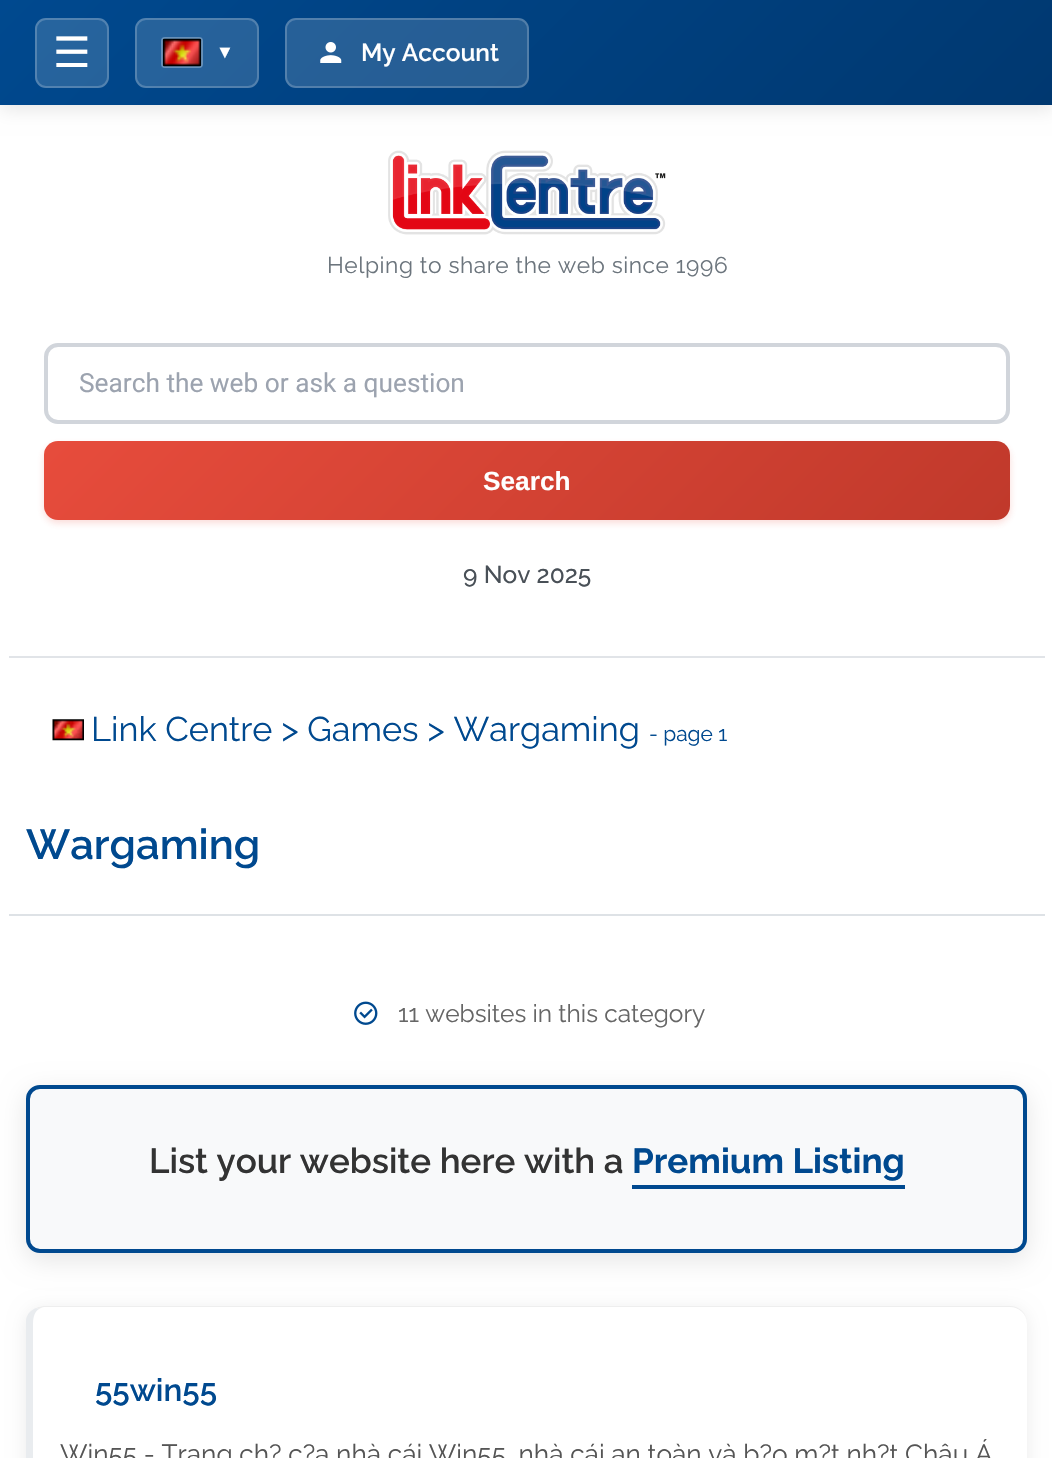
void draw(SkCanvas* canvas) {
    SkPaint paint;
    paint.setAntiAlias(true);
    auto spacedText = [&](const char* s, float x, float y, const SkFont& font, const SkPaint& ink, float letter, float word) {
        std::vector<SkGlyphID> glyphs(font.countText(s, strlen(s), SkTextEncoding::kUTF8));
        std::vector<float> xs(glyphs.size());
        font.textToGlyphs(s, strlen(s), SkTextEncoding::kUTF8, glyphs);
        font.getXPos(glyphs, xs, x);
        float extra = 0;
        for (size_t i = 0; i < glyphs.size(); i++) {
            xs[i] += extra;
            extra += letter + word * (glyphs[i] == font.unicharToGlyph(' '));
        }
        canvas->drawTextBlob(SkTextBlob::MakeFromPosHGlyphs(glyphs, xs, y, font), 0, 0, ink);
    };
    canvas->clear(0xFFFFFFFF);
    paint.setColor(0x1A000000);
    paint.setMaskFilter(SkMaskFilter::MakeBlur(kNormal_SkBlurStyle, 9));
    canvas->drawRect(SkRect::MakeXYWH(0, 4, 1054, 105), paint);
    paint.setMaskFilter(nullptr);
    {
        const SkColor colors[] = {0xFF00498F, 0xFF003870};
        const float stops[] = {0, 1};
        const SkPoint ends[] = {{237, -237}, {816, 342}};
        paint.setShader(SkGradientShader::MakeLinear(ends, colors, stops, 2, SkTileMode::kClamp));
        paint.setAlpha(255);
    }
    canvas->drawRect(SkRect::MakeXYWH(0, 0, 1052, 105), paint);
    paint.setShader(nullptr);
    paint.setColor(0x26FFFFFF);
    canvas->drawRoundRect(SkRect::MakeXYWH(35, 18, 74, 70), 11, 11, paint);
    paint.setStyle(SkPaint::kStroke_Style);
    paint.setStrokeWidth(2);
    paint.setColor(0x33FFFFFF);
    canvas->drawRoundRect(SkRect::MakeXYWH(36, 19, 72, 68), 10, 10, paint);
    SkFont font1(fontMgr->matchFamilyStyle("DejaVu Sans", SkFontStyle::Normal()), 42);
    font1.setSubpixel(true);
    paint.setStyle(SkPaint::kFill_Style);
    paint.setColor(0xFFFFFFFF);
    canvas->drawString("☰", 53, 67, font1, paint);
    paint.setColor(0x26FFFFFF);
    canvas->drawRoundRect(SkRect::MakeXYWH(135, 18, 124, 70), 11, 11, paint);
    paint.setStyle(SkPaint::kStroke_Style);
    paint.setColor(0x33FFFFFF);
    canvas->drawRoundRect(SkRect::MakeXYWH(136, 19, 122, 68), 10, 10, paint);
    paint.setColor(0xFF6791B9);
    canvas->drawRoundRect(SkRect::MakeXYWH(162, 38, 40, 29), 3, 3, paint);
    canvas->drawImageRect(SkImages::DeferredFromEncodedData(SkData::MakeFromFileName("img1.png")), SkRect::MakeXYWH(162, 38, 40, 29), SkSamplingOptions());
    SkFont font2(fontMgr->matchFamilyStyle("Liberation Sans", SkFontStyle::Normal()), 18);
    font2.setSubpixel(true);
    paint.setStyle(SkPaint::kFill_Style);
    paint.setColor(0xFFFFFFFF);
    canvas->drawString("▼", 216, 58, font2, paint);
    paint.setColor(0x26FFFFFF);
    canvas->drawRoundRect(SkRect::MakeXYWH(285, 18, 244, 70), 11, 11, paint);
    paint.setStyle(SkPaint::kStroke_Style);
    paint.setColor(0x33FFFFFF);
    canvas->drawRoundRect(SkRect::MakeXYWH(286, 19, 242, 68), 10, 10, paint);
    canvas->drawImageRect(SkImages::DeferredFromEncodedData(SkData::MakeFromFileName("img2.png")), SkRect::MakeXYWH(320, 42, 22, 21), SkSamplingOptions());
    SkFont font3(fontMgr->matchFamilyStyle("Raleway", SkFontStyle(600, SkFontStyle::kNormal_Width, SkFontStyle::kUpright_Slant)), 24.5f);
    font3.setSubpixel(true);
    paint.setStyle(SkPaint::kFill_Style);
    paint.setColor(0xFFFFFFFF);
    canvas->drawString("My Account", 361, 61, font3, paint);
    paint.setColor(0xFFE1E4E8);
    canvas->drawRect(SkRect::MakeXYWH(9, 656, 1036, 2), paint);
    canvas->drawImageRect(SkImages::DeferredFromEncodedData(SkData::MakeFromFileName("img3.png")), SkRect::MakeXYWH(388, 150, 278, 85), SkSamplingOptions());
    SkFont font4(fontMgr->matchFamilyStyle("Raleway", SkFontStyle::Normal()), 22.75f);
    font4.setSubpixel(true);
    paint.setColor(0xFF6C757D);
    spacedText("Helping to share the web since 1996", 327, 273, font4, paint, 0.55f, 0);
    paint.setStyle(SkPaint::kStroke_Style);
    paint.setStrokeWidth(4);
    paint.setColor(0xFFD1D5DB);
    canvas->drawRoundRect(SkRect::MakeXYWH(46, 345, 962, 77), 12, 12, paint);
    SkFont font5(fontMgr->matchFamilyStyle("Roboto", SkFontStyle::Normal()), 26.25f);
    font5.setSubpixel(true);
    paint.setStyle(SkPaint::kFill_Style);
    paint.setColor(0xFF9CA3AF);
    canvas->drawString("Search the web or ask a question", 79, 392, font5, paint);
    paint.setColor(0x33E74C3C);
    paint.setMaskFilter(SkMaskFilter::MakeBlur(kNormal_SkBlurStyle, 3.5f));
    canvas->drawRoundRect(SkRect::MakeXYWH(44, 445, 966, 78), 14, 14, paint);
    paint.setMaskFilter(nullptr);
    {
        const SkColor colors[] = {0xFFE74C3C, 0xFFC0392B};
        const float stops[] = {0, 1};
        const SkPoint ends[] = {{266, 219}, {788, 742}};
        paint.setShader(SkGradientShader::MakeLinear(ends, colors, stops, 2, SkTileMode::kClamp));
        paint.setAlpha(255);
    }
    canvas->drawRoundRect(SkRect::MakeXYWH(44, 441, 966, 79), 14, 14, paint);
    SkFont font6(fontMgr->matchFamilyStyle("Liberation Sans", SkFontStyle::Bold()), 26.25f);
    font6.setSubpixel(true);
    paint.setShader(nullptr);
    paint.setColor(0xFFFFFFFF);
    canvas->drawString("Search", 483, 490, font6, paint);
    SkFont font7(fontMgr->matchFamilyStyle("Raleway", SkFontStyle(500, SkFontStyle::kNormal_Width, SkFontStyle::kUpright_Slant)), 24.5f);
    font7.setSubpixel(true);
    paint.setColor(0xFF495057);
    canvas->drawString("9 Nov 2025", 463, 583, font7, paint);
    canvas->drawImageRect(SkImages::DeferredFromEncodedData(SkData::MakeFromFileName("img4.png")), SkRect::MakeXYWH(52, 719, 32, 22), SkSamplingOptions());
    SkFont font8(fontMgr->matchFamilyStyle("Raleway", SkFontStyle::Normal()), 34.25f);
    font8.setSubpixel(true);
    paint.setColor(0xFF00498F);
    canvas->drawString("Link Centre > Games > Wargaming", 91, 741, font8, paint);
    SkFont font9(fontMgr->matchFamilyStyle("Raleway", SkFontStyle::Normal()), 21);
    font9.setSubpixel(true);
    canvas->drawString("- page 1", 649, 741, font9, paint);
    paint.setColor(0xFFDEE2E6);
    canvas->drawRect(SkRect::MakeXYWH(9, 914, 1036, 2), paint);
    SkFont font10(fontMgr->matchFamilyStyle("Raleway", SkFontStyle(600, SkFontStyle::kNormal_Width, SkFontStyle::kUpright_Slant)), 42);
    font10.setSubpixel(true);
    paint.setColor(0xFF00498F);
    canvas->drawString("Wargaming", 26, 859, font10, paint);
    canvas->drawImageRect(SkImages::DeferredFromEncodedData(SkData::MakeFromFileName("img5.png")), SkRect::MakeXYWH(354, 1001, 24, 24), SkSamplingOptions());
    SkFont font11(fontMgr->matchFamilyStyle("Raleway", SkFontStyle::Normal()), 24.5f);
    font11.setSubpixel(true);
    paint.setColor(0xFF666666);
    canvas->drawString("11 websites in this category", 398, 1022, font11, paint);
    paint.setColor(0x1A000000);
    paint.setMaskFilter(SkMaskFilter::MakeBlur(kNormal_SkBlurStyle, 13));
    canvas->drawRoundRect(SkRect::MakeXYWH(26, 1092, 1001, 168), 14, 14, paint);
    paint.setMaskFilter(nullptr);
    paint.setColor(0xFFF8F9FA);
    canvas->drawRoundRect(SkRect::MakeXYWH(28, 1087, 997, 164), 12, 12, paint);
    paint.setStyle(SkPaint::kStroke_Style);
    paint.setColor(0xFF00498F);
    canvas->drawRoundRect(SkRect::MakeXYWH(28, 1087, 997, 164), 12, 12, paint);
    SkFont font12(fontMgr->matchFamilyStyle("Raleway", SkFontStyle(600, SkFontStyle::kNormal_Width, SkFontStyle::kUpright_Slant)), 35);
    font12.setSubpixel(true);
    paint.setStyle(SkPaint::kFill_Style);
    paint.setColor(0xFF333333);
    canvas->drawString("List your website here with a", 149, 1173, font12, paint);
    SkFont font13(fontMgr->matchFamilyStyle("Raleway", SkFontStyle::Bold()), 35);
    font13.setSubpixel(true);
    paint.setColor(0xFF00498F);
    canvas->drawString("Premium Listing", 632, 1173, font13, paint);
    canvas->drawRect(SkRect::MakeXYWH(632, 1185, 273, 4), paint);
    paint.setColor(0x14000000);
    paint.setMaskFilter(SkMaskFilter::MakeBlur(kNormal_SkBlurStyle, 9));
    canvas->drawRoundRect(SkRect::MakeXYWH(26, 1309, 1001, 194), 18, 18, paint);
    paint.setMaskFilter(nullptr);
    paint.setColor(0xFFFFFFFF);
    canvas->drawRoundRect(SkRect::MakeXYWH(26, 1306, 1001, 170), 18, 18, paint);
    paint.setColor(0xFFEEEEEE);
    canvas->drawPath(SkPathBuilder().moveTo(44, 1306).lineTo(1010, 1306).cubicTo(1019, 1306, 1027, 1313, 1027, 1323).cubicTo(1027, 1314, 1019, 1307, 1010, 1307).lineTo(44, 1307).cubicTo(42, 1307, 41, 1308, 39, 1309).lineTo(36, 1308).cubicTo(38, 1307, 41, 1306, 44, 1306).close().detach(), paint);
    paint.setColor(0xFFE9ECEF);
    canvas->drawPath(SkPathBuilder().moveTo(41, 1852).lineTo(40, 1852).cubicTo(33, 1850, 27, 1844, 26, 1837).lineTo(26, 1320).cubicTo(27, 1314, 31, 1310, 36, 1308).lineTo(39, 1309).cubicTo(35, 1311, 33, 1317, 33, 1323).lineTo(33, 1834).cubicTo(33, 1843, 37, 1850, 41, 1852).close().detach(), paint);
    SkFont font14(fontMgr->matchFamilyStyle("Raleway", SkFontStyle(600, SkFontStyle::kNormal_Width, SkFontStyle::kUpright_Slant)), 31.5f);
    font14.setSubpixel(true);
    paint.setColor(0xFF00498F);
    canvas->drawString("55win55", 95, 1401, font14, paint);
    SkFont font15(fontMgr->matchFamilyStyle("Raleway", SkFontStyle::Normal()), 26.25f);
    font15.setSubpixel(true);
    paint.setColor(0xFF555555);
    canvas->drawString("Win55 - Trang ch? c?a nhà cái Win55, nhà cái an toàn và b?o m?t nh?t Châu Á", 60, 1463, font15, paint);
}
